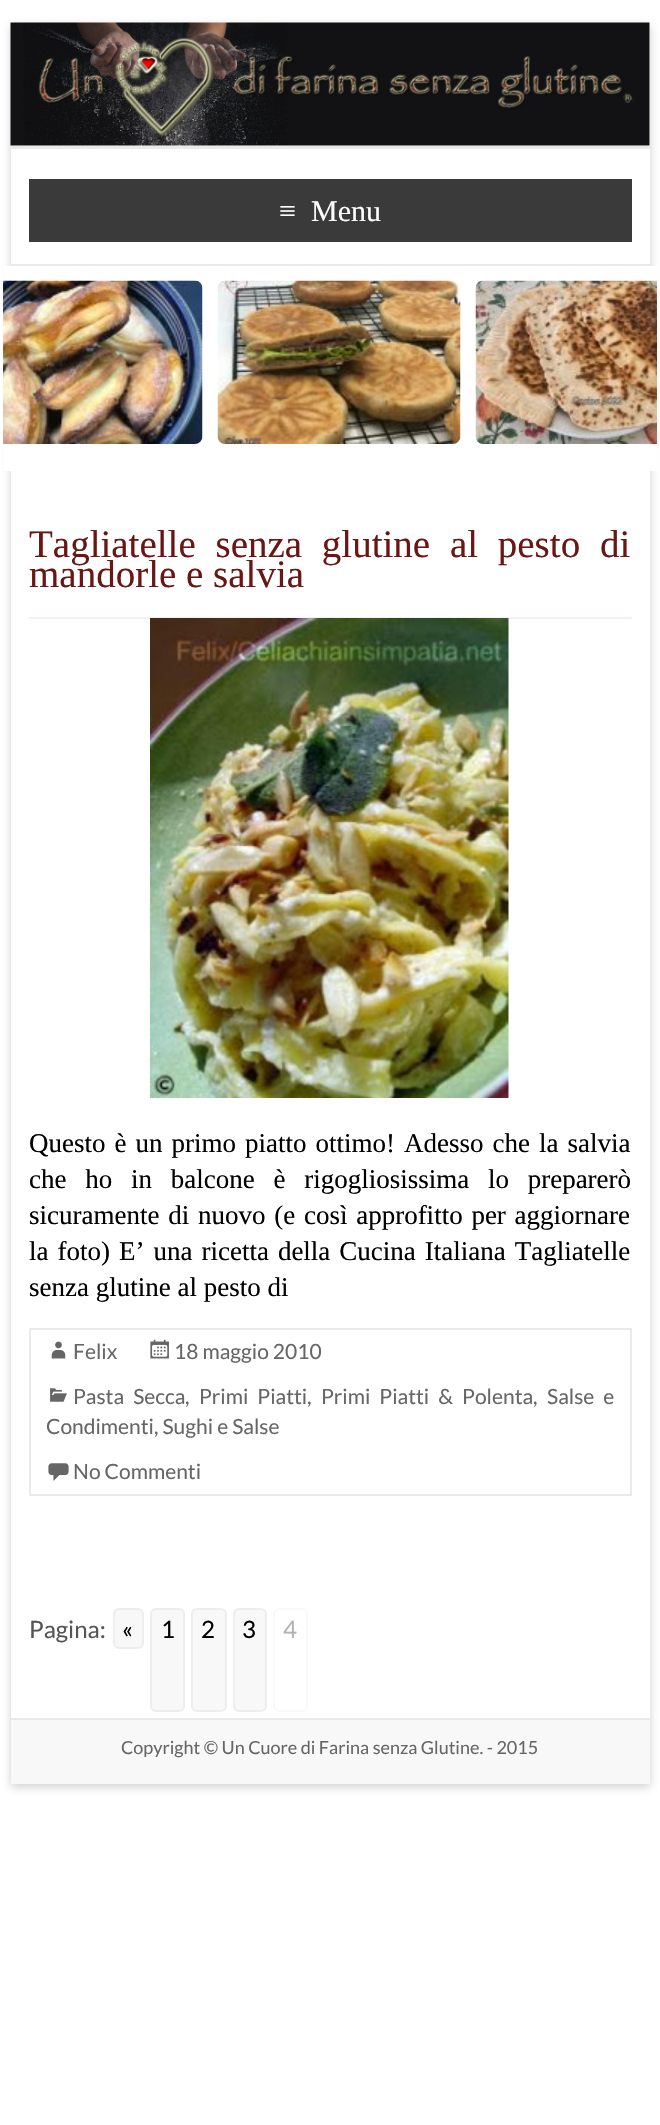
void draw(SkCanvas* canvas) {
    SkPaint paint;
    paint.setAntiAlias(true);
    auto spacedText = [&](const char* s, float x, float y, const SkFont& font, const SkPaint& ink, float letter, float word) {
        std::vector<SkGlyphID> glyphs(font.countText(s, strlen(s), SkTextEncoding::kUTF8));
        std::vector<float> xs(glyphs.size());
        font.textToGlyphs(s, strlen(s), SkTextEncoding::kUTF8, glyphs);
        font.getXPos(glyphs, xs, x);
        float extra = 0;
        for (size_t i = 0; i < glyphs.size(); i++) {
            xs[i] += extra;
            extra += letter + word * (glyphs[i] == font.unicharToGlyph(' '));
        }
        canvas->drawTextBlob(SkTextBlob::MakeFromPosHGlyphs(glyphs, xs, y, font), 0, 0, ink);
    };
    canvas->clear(0xFFFFFFFF);
    paint.setColor(0x4D646464);
    paint.setMaskFilter(SkMaskFilter::MakeBlur(kNormal_SkBlurStyle, 4.5f));
    canvas->drawRect(SkRect::MakeXYWH(11, 26, 639, 1761), paint);
    paint.setMaskFilter(nullptr);
    paint.setColor(0xFFFFFFFF);
    canvas->drawRect(SkRect::MakeXYWH(11, 23, 639, 1695), paint);
    canvas->drawImageRect(SkImages::DeferredFromEncodedData(SkData::MakeFromFileName("img1.png")), SkRect::MakeXYWH(10, 22, 640, 124), SkSamplingOptions());
    paint.setColor(0xFFEAEAEA);
    canvas->drawRect(SkRect::MakeXYWH(11, 146, 639, 3), paint);
    canvas->drawRect(SkRect::MakeXYWH(11, 264, 639, 2), paint);
    paint.setColor(0xFF3A3A3A);
    canvas->drawRect(SkRect::MakeXYWH(29, 179, 603, 63), paint);
    SkFont font1(fontMgr->matchFamilyStyle("Liberation Serif", SkFontStyle::Normal()), 30);
    font1.setSubpixel(true);
    paint.setColor(0xFFFFFFFF);
    canvas->drawString("≡", 279, 221, font1, paint);
    canvas->drawString("Menu", 311, 221, font1, paint);
    canvas->drawRect(SkRect::MakeXYWH(4, 266, 653, 205), paint);
    canvas->drawImageRect(SkImages::DeferredFromEncodedData(SkData::MakeFromFileName("img2.png")), SkRect::MakeXYWH(3, 280, 200, 164), SkSamplingOptions());
    canvas->drawImageRect(SkImages::DeferredFromEncodedData(SkData::MakeFromFileName("img3.png")), SkRect::MakeXYWH(217, 280, 244, 164), SkSamplingOptions());
    canvas->drawImageRect(SkImages::DeferredFromEncodedData(SkData::MakeFromFileName("img4.png")), SkRect::MakeXYWH(475, 280, 182, 164), SkSamplingOptions());
    paint.setColor(0xFFF5EFEF);
    canvas->drawRect(SkRect::MakeXYWH(29, 617, 603, 2), paint);
    SkFont font2(fontMgr->matchFamilyStyle("Liberation Serif", SkFontStyle::Normal()), 39);
    font2.setSubpixel(true);
    paint.setColor(0xFF6A1614);
    spacedText("Tagliatelle senza glutine al pesto di", 29, 557, font2, paint, 0, 10);
    canvas->drawString("mandorle e salvia", 29, 587, font2, paint);
    canvas->drawImageRect(SkImages::DeferredFromEncodedData(SkData::MakeFromFileName("img5.png")), SkRect::MakeXYWH(150, 618, 359, 480), SkSamplingOptions());
    SkFont font3(fontMgr->matchFamilyStyle("Liberation Serif", SkFontStyle::Normal()), 27);
    font3.setSubpixel(true);
    paint.setColor(0xFF000000);
    spacedText("Questo è un primo piatto ottimo! Adesso che la salvia", 29, 1152, font3, paint, 0, 2.25f);
    spacedText("che ho in balcone è rigogliosissima lo preparerò", 29, 1188, font3, paint, 0, 12);
    spacedText("sicuramente di nuovo (e così approfitto per aggiornare", 29, 1224, font3, paint, 0, 2);
    spacedText("la foto) E’ una ricetta della Cucina Italiana Tagliatelle", 29, 1260, font3, paint, 0, 2.25f);
    canvas->drawString("senza glutine al pesto di", 29, 1296, font3, paint);
    paint.setStyle(SkPaint::kStroke_Style);
    paint.setStrokeWidth(2);
    paint.setColor(0xFFEAEAEA);
    canvas->drawRect(SkRect::MakeXYWH(30, 1329, 601, 166), paint);
    canvas->drawImageRect(SkImages::DeferredFromEncodedData(SkData::MakeFromFileName("img6.png")), SkRect::MakeXYWH(51, 1341, 15, 18), SkSamplingOptions());
    SkFont font4(fontMgr->matchFamilyStyle("Lato", SkFontStyle::Normal()), 21);
    font4.setSubpixel(true);
    paint.setStyle(SkPaint::kFill_Style);
    paint.setColor(0xFF666666);
    canvas->drawString("Felix", 73, 1359, font4, paint);
    canvas->drawImageRect(SkImages::DeferredFromEncodedData(SkData::MakeFromFileName("img7.png")), SkRect::MakeXYWH(150, 1339, 19, 20), SkSamplingOptions());
    canvas->drawString("18 maggio 2010", 174, 1359, font4, paint);
    canvas->drawImageRect(SkImages::DeferredFromEncodedData(SkData::MakeFromFileName("img8.png")), SkRect::MakeXYWH(50, 1388, 17, 14), SkSamplingOptions());
    spacedText("Pasta Secca", 73, 1404, font4, paint, 0, 5);
    canvas->drawString(",", 185, 1404, font4, paint);
    spacedText("Primi Piatti", 199, 1404, font4, paint, 0, 5);
    canvas->drawString(",", 307, 1404, font4, paint);
    spacedText("Primi Piatti & Polenta", 321, 1404, font4, paint, 0, 5);
    canvas->drawString(",", 533, 1404, font4, paint);
    spacedText("Salse e", 547, 1404, font4, paint, 0, 5);
    canvas->drawString("Condimenti, Sughi e Salse", 46, 1434, font4, paint);
    canvas->drawImageRect(SkImages::DeferredFromEncodedData(SkData::MakeFromFileName("img9.png")), SkRect::MakeXYWH(48, 1463, 21, 18), SkSamplingOptions());
    canvas->drawString("No Commenti", 73, 1479, font4, paint);
    SkFont font5(fontMgr->matchFamilyStyle("Lato", SkFontStyle::Normal()), 24);
    font5.setSubpixel(true);
    paint.setColor(0xFF555555);
    canvas->drawString("Pagina:", 29, 1638, font5, paint);
    paint.setColor(0xFFF8F8F8);
    canvas->drawRoundRect(SkRect::MakeXYWH(114, 1609, 29, 39), 5, 5, paint);
    paint.setStyle(SkPaint::kStroke_Style);
    paint.setColor(0xFFEFECEE);
    canvas->drawRoundRect(SkRect::MakeXYWH(114, 1609, 29, 39), 5, 5, paint);
    paint.setStyle(SkPaint::kFill_Style);
    paint.setColor(0xFF000000);
    canvas->drawString("«", 122, 1638, font5, paint);
    paint.setColor(0xFFF8F8F8);
    canvas->drawRoundRect(SkRect::MakeXYWH(151, 1609, 33, 102), 5, 5, paint);
    paint.setStyle(SkPaint::kStroke_Style);
    paint.setColor(0xFFEFECEE);
    canvas->drawRoundRect(SkRect::MakeXYWH(151, 1609, 33, 102), 5, 5, paint);
    paint.setStyle(SkPaint::kFill_Style);
    paint.setColor(0xFF000000);
    canvas->drawString("1", 161, 1638, font5, paint);
    paint.setColor(0xFFF8F8F8);
    canvas->drawRoundRect(SkRect::MakeXYWH(192, 1609, 34, 102), 5, 5, paint);
    paint.setStyle(SkPaint::kStroke_Style);
    paint.setColor(0xFFEFECEE);
    canvas->drawRoundRect(SkRect::MakeXYWH(192, 1609, 34, 102), 5, 5, paint);
    paint.setStyle(SkPaint::kFill_Style);
    paint.setColor(0xFF000000);
    canvas->drawString("2", 201, 1638, font5, paint);
    paint.setColor(0xFFF8F8F8);
    canvas->drawRoundRect(SkRect::MakeXYWH(234, 1609, 32, 102), 5, 5, paint);
    paint.setStyle(SkPaint::kStroke_Style);
    paint.setColor(0xFFEFECEE);
    canvas->drawRoundRect(SkRect::MakeXYWH(234, 1609, 32, 102), 5, 5, paint);
    paint.setStyle(SkPaint::kFill_Style);
    paint.setColor(0xFF000000);
    canvas->drawString("3", 242, 1638, font5, paint);
    paint.setStyle(SkPaint::kStroke_Style);
    paint.setColor(0xFFFAF9FA);
    canvas->drawRoundRect(SkRect::MakeXYWH(274, 1609, 33, 102), 5, 5, paint);
    paint.setStyle(SkPaint::kFill_Style);
    paint.setColor(0xFFB3B3B3);
    canvas->drawString("4", 283, 1638, font5, paint);
    paint.setColor(0xFFF8F8F8);
    canvas->drawRect(SkRect::MakeXYWH(11, 1720, 639, 64), paint);
    paint.setColor(0xFFEAEAEA);
    canvas->drawRect(SkRect::MakeXYWH(11, 1718, 639, 2), paint);
    SkFont font6(fontMgr->matchFamilyStyle("Lato", SkFontStyle::Normal()), 18);
    font6.setSubpixel(true);
    paint.setColor(0xFF666666);
    canvas->drawString("Copyright © Un Cuore di Farina senza Glutine. - 2015", 121, 1754, font6, paint);
}
